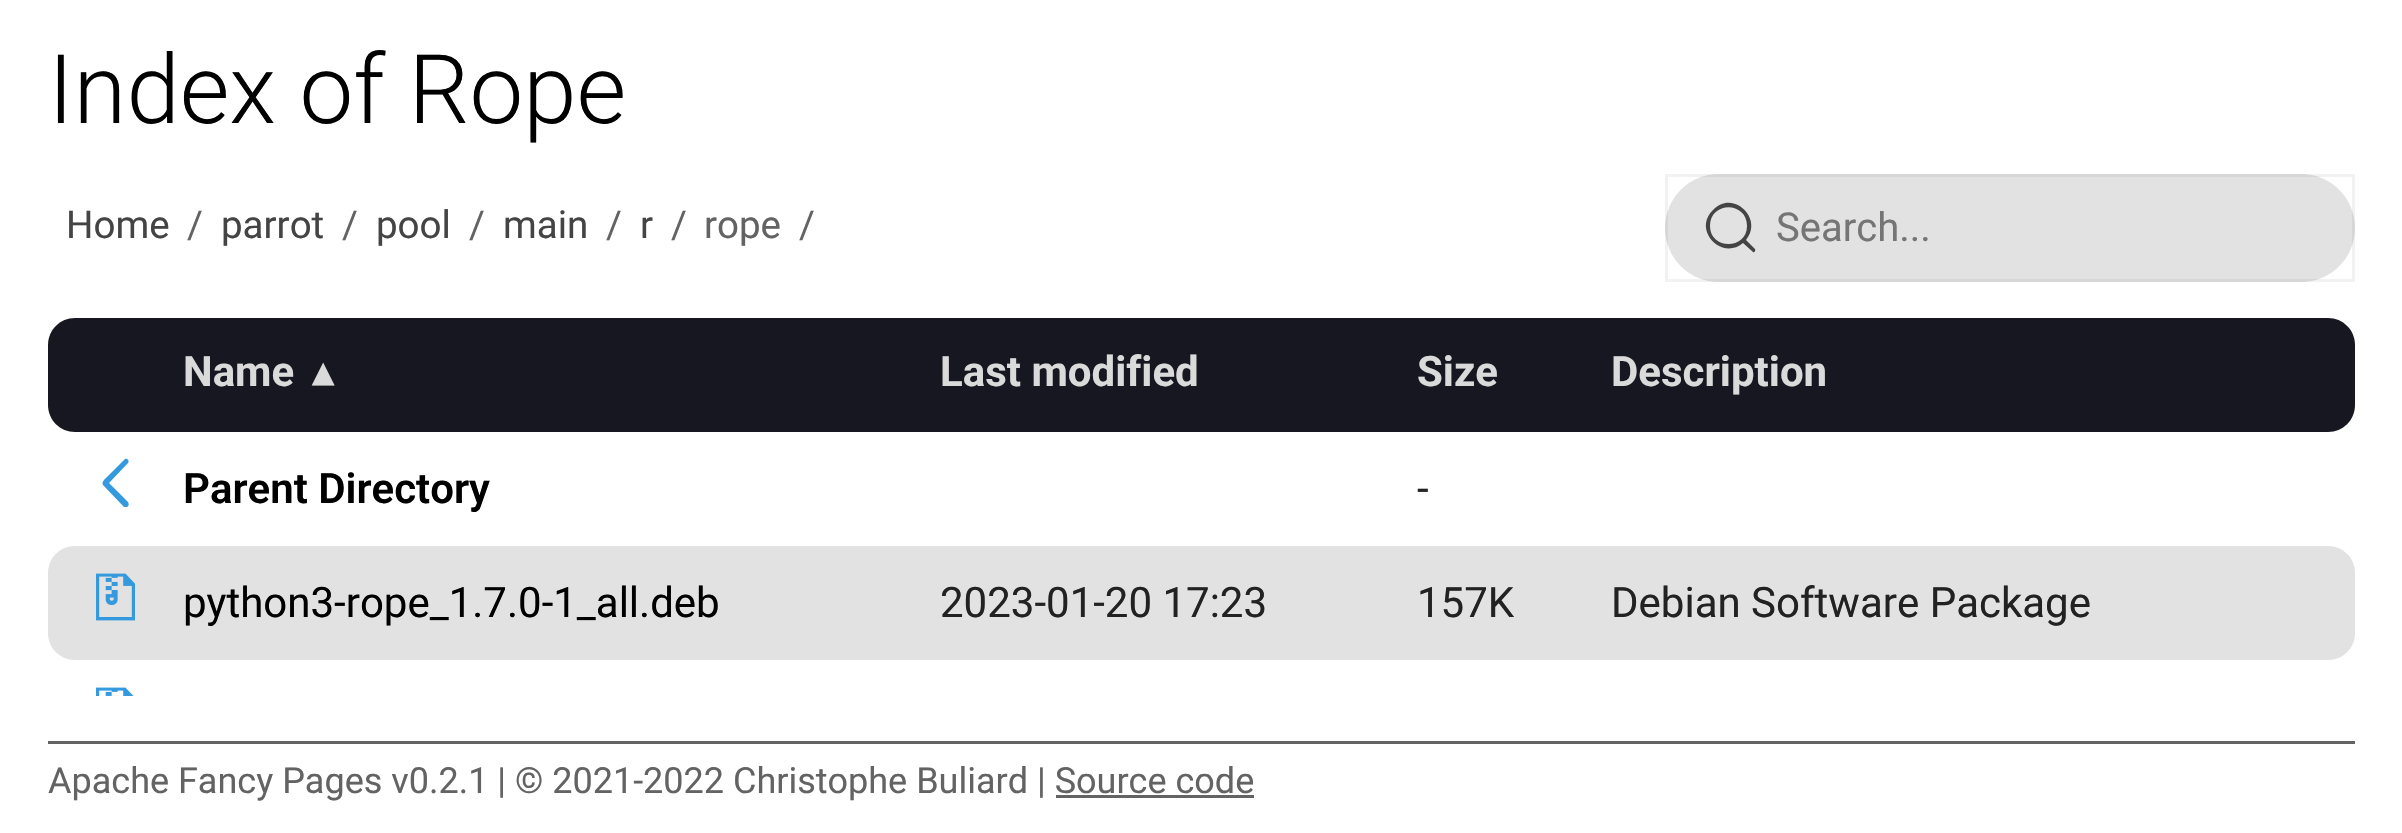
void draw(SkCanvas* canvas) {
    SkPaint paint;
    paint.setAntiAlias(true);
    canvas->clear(0xFFFFFFFF);
    SkFont font1(fontMgr->matchFamilyStyle("Roboto", SkFontStyle(300, SkFontStyle::kNormal_Width, SkFontStyle::kUpright_Slant)), 96);
    font1.setSubpixel(true);
    paint.setColor(0xFF000000);
    canvas->drawString("Index of Rope", 48, 123, font1, paint);
    SkFont font2(fontMgr->matchFamilyStyle("Roboto", SkFontStyle::Normal()), 38.5f);
    font2.setSubpixel(true);
    paint.setColor(0xFF444444);
    canvas->drawString("Home", 66, 238, font2, paint);
    paint.setColor(0xFF636363);
    canvas->drawString("/", 187, 238, font2, paint);
    paint.setColor(0xFF444444);
    canvas->drawString("parrot", 221, 238, font2, paint);
    paint.setColor(0xFF636363);
    canvas->drawString("/", 342, 238, font2, paint);
    paint.setColor(0xFF444444);
    canvas->drawString("pool", 376, 238, font2, paint);
    paint.setColor(0xFF636363);
    canvas->drawString("/", 469, 238, font2, paint);
    paint.setColor(0xFF444444);
    canvas->drawString("main", 503, 238, font2, paint);
    paint.setColor(0xFF636363);
    canvas->drawString("/", 606, 238, font2, paint);
    paint.setColor(0xFF444444);
    canvas->drawString("r", 640, 238, font2, paint);
    paint.setColor(0xFF636363);
    canvas->drawString("/", 671, 238, font2, paint);
    canvas->drawString("rope", 704, 238, font2, paint);
    canvas->drawString("/", 799, 238, font2, paint);
    paint.setColor(0xFFE3E2E2);
    canvas->drawRoundRect(SkRect::MakeXYWH(1665, 174, 690, 108), 54, 54, paint);
    paint.setStyle(SkPaint::kStroke_Style);
    paint.setStrokeWidth(3);
    paint.setColor(0x0D000000);
    canvas->drawRect(SkRect::MakeXYWH(1666.5f, 175.5f, 687, 105), paint);
    paint.setStyle(SkPaint::kFill_Style);
    paint.setColor(0xFF444444);
    canvas->drawPath(SkPathBuilder().moveTo(1755, 249).lineTo(1746, 240).cubicTo(1764, 219, 1733, 189, 1713, 210).cubicTo(1692, 230, 1722, 261, 1743, 243).lineTo(1753, 252).cubicTo(1754, 253, 1756, 251, 1755, 249).close().moveTo(1710, 226).cubicTo(1710, 201, 1747, 201, 1747, 226).cubicTo(1747, 250, 1710, 250, 1710, 226).close().detach(), paint);
    SkFont font3(fontMgr->matchFamilyStyle("Roboto", SkFontStyle::Normal()), 40);
    font3.setSubpixel(true);
    paint.setColor(0xFF757575);
    canvas->drawString("Search...", 1776, 241, font3, paint);
    paint.setColor(0xFF161720);
    canvas->drawPath(SkPathBuilder().moveTo(75, 318).lineTo(183, 318).lineTo(183, 432).lineTo(75, 432).cubicTo(60, 432, 48, 420, 48, 405).lineTo(48, 345).cubicTo(48, 330, 60, 318, 75, 318).close().detach(), paint);
    canvas->drawRect(SkRect::MakeXYWH(183, 318, 1398, 114), paint);
    SkFont font4(fontMgr->matchFamilyStyle("Roboto", SkFontStyle::Bold()), 42);
    font4.setSubpixel(true);
    paint.setColor(0xFFDADADA);
    canvas->drawString("Name", 183, 386, font4, paint);
    SkFont font5(fontMgr->matchFamilyStyle("DejaVu Sans", SkFontStyle::Bold()), 42);
    font5.setSubpixel(true);
    canvas->drawString("▴", 312, 386, font5, paint);
    canvas->drawString("Last modified", 940, 386, font4, paint);
    canvas->drawString("Size", 1417, 386, font4, paint);
    paint.setColor(0xFF161720);
    canvas->drawPath(SkPathBuilder().moveTo(1581, 318).lineTo(2328, 318).cubicTo(2343, 318, 2355, 330, 2355, 345).lineTo(2355, 405).cubicTo(2355, 420, 2343, 432, 2328, 432).lineTo(1581, 432).close().detach(), paint);
    paint.setColor(0xFFDADADA);
    canvas->drawString("Description", 1611, 386, font4, paint);
    paint.setColor(0xFF3499DD);
    canvas->drawPath(SkPathBuilder().moveTo(128, 502).cubicTo(129, 504, 129, 506, 127, 507).lineTo(124, 507).lineTo(103, 485).lineTo(105, 483).lineTo(103, 485).cubicTo(101, 482, 105, 479, 107, 477).lineTo(125, 459).cubicTo(127, 458, 130, 461, 128, 463).lineTo(109, 483).close().detach(), paint);
    SkFont font6(fontMgr->matchFamilyStyle("Roboto", SkFontStyle(600, SkFontStyle::kNormal_Width, SkFontStyle::kUpright_Slant)), 42);
    font6.setSubpixel(true);
    paint.setColor(0xFF000000);
    canvas->drawString("Parent Directory", 183, 503, font6, paint);
    SkFont font7(fontMgr->matchFamilyStyle("Roboto", SkFontStyle::Normal()), 42);
    font7.setSubpixel(true);
    paint.setColor(0xFF222222);
    canvas->drawString("-", 1417, 503, font7, paint);
    paint.setColor(0xFFE3E2E2);
    canvas->drawPath(SkPathBuilder().moveTo(75, 546).lineTo(183, 546).lineTo(183, 660).lineTo(75, 660).cubicTo(60, 660, 48, 648, 48, 633).lineTo(48, 573).cubicTo(48, 558, 60, 546, 75, 546).close().detach(), paint);
    canvas->drawImageRect(SkImages::DeferredFromEncodedData(SkData::MakeFromFileName("img1.png")), SkRect::MakeXYWH(96, 573, 39, 48), SkSamplingOptions());
    canvas->drawRect(SkRect::MakeXYWH(183, 546, 1398, 114), paint);
    paint.setColor(0xFF000000);
    canvas->drawString("python3-rope_1.7.0-1_all.deb", 183, 617, font7, paint);
    paint.setColor(0xFF222222);
    canvas->drawString("2023-01-20 17:23", 940, 617, font7, paint);
    canvas->drawString("157K", 1417, 617, font7, paint);
    paint.setColor(0xFFE3E2E2);
    canvas->drawPath(SkPathBuilder().moveTo(1581, 546).lineTo(2328, 546).cubicTo(2343, 546, 2355, 558, 2355, 573).lineTo(2355, 633).cubicTo(2355, 648, 2343, 660, 2328, 660).lineTo(1581, 660).close().detach(), paint);
    paint.setColor(0xFF222222);
    canvas->drawString("Debian Software Package", 1611, 617, font7, paint);
    canvas->drawImageRect(SkImages::DeferredFromEncodedData(SkData::MakeFromFileName("img2.png")), SkRect::MakeXYWH(96, 687, 38, 9), SkSamplingOptions());
    paint.setColor(0xFF636363);
    canvas->drawRect(SkRect::MakeXYWH(48, 741, 2307, 3), paint);
    SkFont font8(fontMgr->matchFamilyStyle("Roboto", SkFontStyle::Normal()), 36);
    font8.setSubpixel(true);
    canvas->drawString("Apache Fancy Pages v0.2.1 | © 2021-2022 Christophe Buliard | Source code", 48, 793, font8, paint);
    canvas->drawRect(SkRect::MakeXYWH(1056, 795, 198, 3), paint);
}
